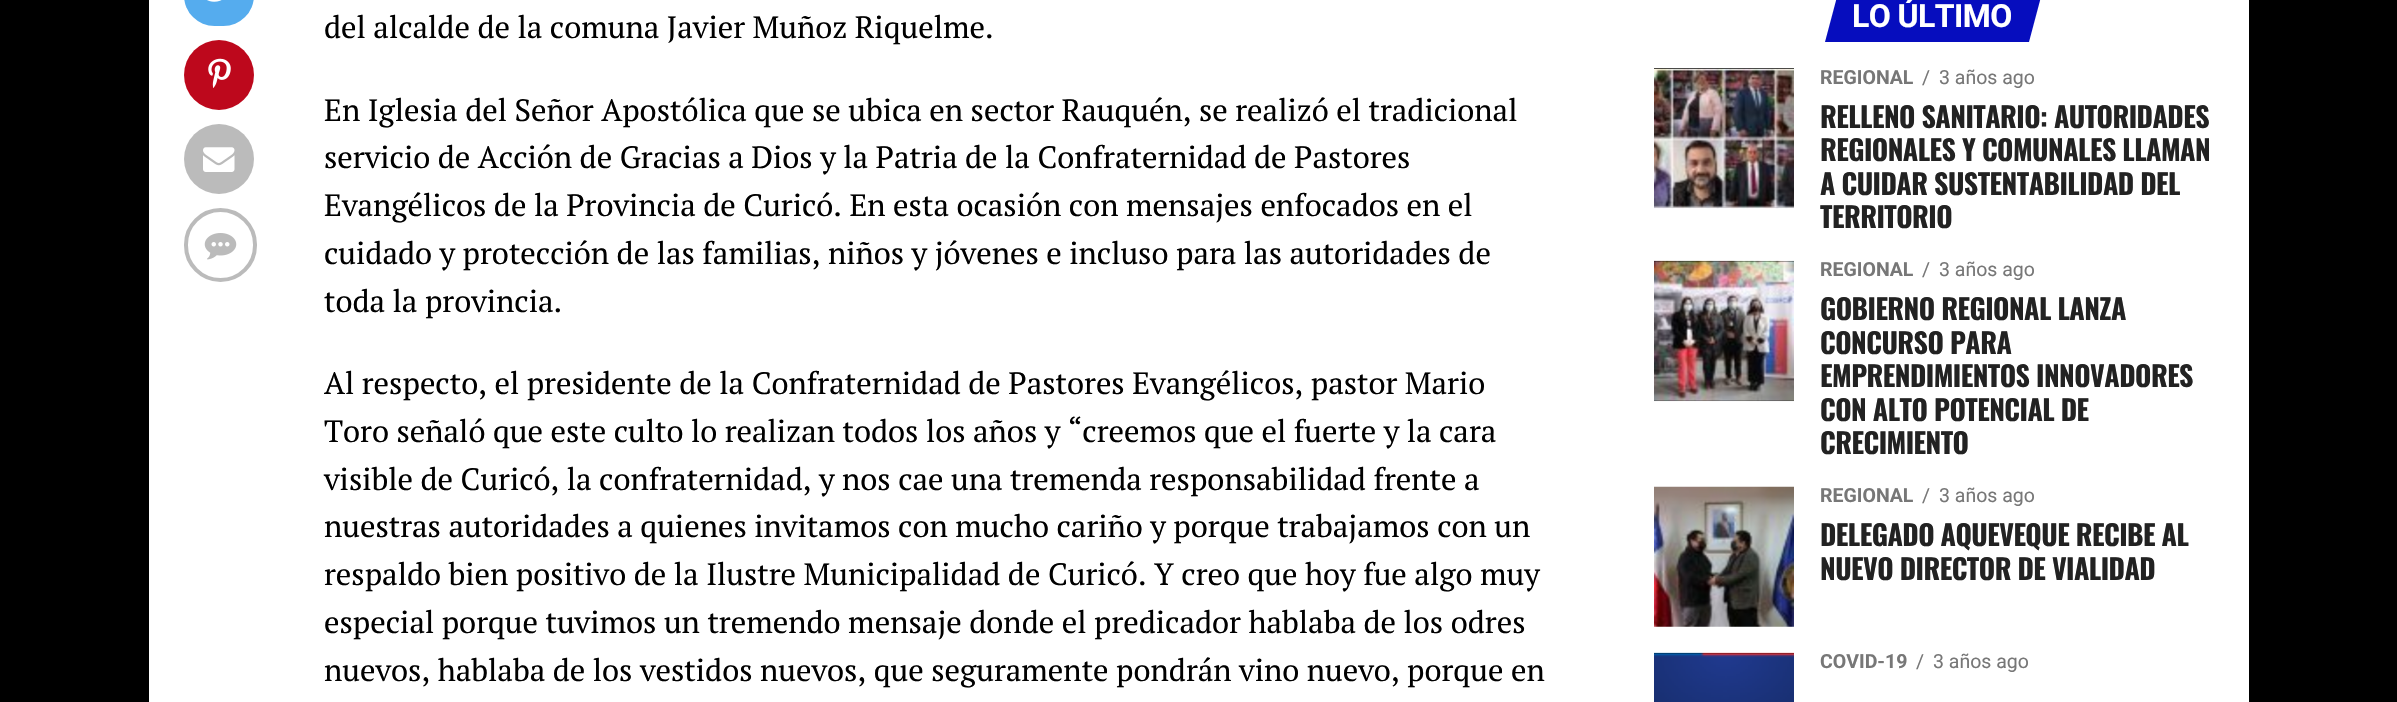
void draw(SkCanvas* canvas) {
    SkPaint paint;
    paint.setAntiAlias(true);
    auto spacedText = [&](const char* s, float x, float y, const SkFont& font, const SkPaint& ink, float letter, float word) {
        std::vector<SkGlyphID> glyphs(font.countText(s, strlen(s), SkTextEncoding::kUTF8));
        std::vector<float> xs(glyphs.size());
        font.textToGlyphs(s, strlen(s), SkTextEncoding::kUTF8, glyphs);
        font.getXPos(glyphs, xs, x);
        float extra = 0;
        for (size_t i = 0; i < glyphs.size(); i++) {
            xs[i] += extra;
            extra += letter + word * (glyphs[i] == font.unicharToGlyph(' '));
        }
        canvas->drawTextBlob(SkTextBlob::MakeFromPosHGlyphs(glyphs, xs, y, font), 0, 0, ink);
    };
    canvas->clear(0xFF000000);
    paint.setColor(0xFFFFFFFF);
    canvas->drawRect(SkRect::MakeXYWH(149, 0, 2100, 702), paint);
    paint.setColor(0xFF55ACEE);
    canvas->drawRoundRect(SkRect::MakeXYWH(184, -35, 70, 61), 35, 35, paint);
    canvas->drawImageRect(SkImages::DeferredFromEncodedData(SkData::MakeFromFileName("img1.png")), SkRect::MakeXYWH(207, 0, 15, 2), SkSamplingOptions());
    paint.setColor(0xFFBD081C);
    canvas->drawCircle(219, 75, 35, paint);
    canvas->drawImageRect(SkImages::DeferredFromEncodedData(SkData::MakeFromFileName("img2.png")), SkRect::MakeXYWH(208, 58, 23, 30), SkSamplingOptions());
    paint.setColor(0xFFBBBBBB);
    canvas->drawCircle(219, 159, 35, paint);
    canvas->drawImageRect(SkImages::DeferredFromEncodedData(SkData::MakeFromFileName("img3.png")), SkRect::MakeXYWH(203, 147, 32, 25), SkSamplingOptions());
    paint.setStyle(SkPaint::kStroke_Style);
    paint.setStrokeWidth(4);
    canvas->drawRoundRect(SkRect::MakeXYWH(186, 210, 69, 70), 34.5f, 34.5f, paint);
    canvas->drawImageRect(SkImages::DeferredFromEncodedData(SkData::MakeFromFileName("img4.png")), SkRect::MakeXYWH(204, 233, 33, 27), SkSamplingOptions());
    SkFont font1(fontMgr->matchFamilyStyle("PT Serif", SkFontStyle::Normal()), 30.8f);
    font1.setSubpixel(true);
    paint.setStyle(SkPaint::kFill_Style);
    paint.setColor(0xFF000000);
    canvas->drawString("del alcalde de la comuna Javier Muñoz Riquelme.", 324, 38, font1, paint);
    canvas->drawString("En Iglesia del Señor Apostólica que se ubica en sector Rauquén, se realizó el tradicional", 324, 121, font1, paint);
    canvas->drawString("servicio de Acción de Gracias a Dios y la Patria de la Confraternidad de Pastores", 324, 168, font1, paint);
    canvas->drawString("Evangélicos de la Provincia de Curicó. En esta ocasión con mensajes enfocados en el", 324, 216, font1, paint);
    canvas->drawString("cuidado y protección de las familias, niños y jóvenes e incluso para las autoridades de", 324, 264, font1, paint);
    canvas->drawString("toda la provincia.", 324, 312, font1, paint);
    canvas->drawString("Al respecto, el presidente de la Confraternidad de Pastores Evangélicos, pastor Mario", 324, 394, font1, paint);
    canvas->drawString("Toro señaló que este culto lo realizan todos los años y “creemos que el fuerte y la cara", 324, 442, font1, paint);
    canvas->drawString("visible de Curicó, la confraternidad, y nos cae una tremenda responsabilidad frente a", 324, 490, font1, paint);
    canvas->drawString("nuestras autoridades a quienes invitamos con mucho cariño y porque trabajamos con un", 324, 537, font1, paint);
    canvas->drawString("respaldo bien positivo de la Ilustre Municipalidad de Curicó. Y creo que hoy fue algo muy", 324, 585, font1, paint);
    canvas->drawString("especial porque tuvimos un tremendo mensaje donde el predicador hablaba de los odres", 324, 633, font1, paint);
    canvas->drawString("nuevos, hablaba de los vestidos nuevos, que seguramente pondrán vino nuevo, porque en", 324, 681, font1, paint);
    paint.setColor(0xFF060DBE);
    canvas->drawPath(SkPathBuilder().moveTo(1838, -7).lineTo(2042, -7).lineTo(2029, 42).lineTo(1825, 42).close().detach(), paint);
    SkFont font2(fontMgr->matchFamilyStyle("Roboto", SkFontStyle::Bold()), 32);
    font2.setSubpixel(true);
    paint.setColor(0xFFFFFFFF);
    spacedText("LO ÚLTIMO", 1852, 27, font2, paint, -0.6f, 0);
    paint.setColor(0xFF000000);
    canvas->drawRect(SkRect::MakeXYWH(1654, 68, 140, 140), paint);
    canvas->drawImageRect(SkImages::DeferredFromEncodedData(SkData::MakeFromFileName("img5.png")), SkRect::MakeXYWH(1654, 68, 140, 141), SkSamplingOptions());
    SkFont font3(fontMgr->matchFamilyStyle("Roboto", SkFontStyle::Bold()), 19.5f);
    font3.setSubpixel(true);
    paint.setColor(0xFF777777);
    canvas->drawString("REGIONAL", 1820, 84, font3, paint);
    SkFont font4(fontMgr->matchFamilyStyle("Roboto", SkFontStyle::Normal()), 19.5f);
    font4.setSubpixel(true);
    canvas->drawString("/", 1922, 84, font4, paint);
    canvas->drawString("3 años ago", 1939, 84, font4, paint);
    SkFont font5(fontMgr->matchFamilyStyle("Oswald", SkFontStyle::Bold()), 28);
    font5.setSubpixel(true);
    paint.setColor(0xFF222222);
    spacedText("RELLENO SANITARIO: AUTORIDADES", 1820, 128, font5, paint, -0.55f, 0);
    spacedText("REGIONALES Y COMUNALES LLAMAN", 1820, 161, font5, paint, -0.55f, 0);
    spacedText("A CUIDAR SUSTENTABILIDAD DEL", 1820, 195, font5, paint, -0.55f, 0);
    spacedText("TERRITORIO", 1820, 228, font5, paint, -0.55f, 0);
    paint.setColor(0xFF000000);
    canvas->drawRect(SkRect::MakeXYWH(1654, 261, 140, 140), paint);
    canvas->drawImageRect(SkImages::DeferredFromEncodedData(SkData::MakeFromFileName("img6.png")), SkRect::MakeXYWH(1654, 260, 140, 142), SkSamplingOptions());
    paint.setColor(0xFF777777);
    canvas->drawString("REGIONAL", 1820, 276, font3, paint);
    canvas->drawString("/", 1922, 276, font4, paint);
    canvas->drawString("3 años ago", 1939, 276, font4, paint);
    paint.setColor(0xFF222222);
    spacedText("GOBIERNO REGIONAL LANZA", 1820, 320, font5, paint, -0.55f, 0);
    spacedText("CONCURSO PARA", 1820, 354, font5, paint, -0.55f, 0);
    spacedText("EMPRENDIMIENTOS INNOVADORES", 1820, 387, font5, paint, -0.55f, 0);
    spacedText("CON ALTO POTENCIAL DE", 1820, 421, font5, paint, -0.55f, 0);
    spacedText("CRECIMIENTO", 1820, 454, font5, paint, -0.55f, 0);
    canvas->drawImageRect(SkImages::DeferredFromEncodedData(SkData::MakeFromFileName("img7.png")), SkRect::MakeXYWH(1654, 486, 140, 141), SkSamplingOptions());
    paint.setColor(0xFF777777);
    canvas->drawString("REGIONAL", 1820, 502, font3, paint);
    canvas->drawString("/", 1922, 502, font4, paint);
    canvas->drawString("3 años ago", 1939, 502, font4, paint);
    paint.setColor(0xFF222222);
    spacedText("DELEGADO AQUEVEQUE RECIBE AL", 1820, 546, font5, paint, -0.55f, 0);
    spacedText("NUEVO DIRECTOR DE VIALIDAD", 1820, 580, font5, paint, -0.55f, 0);
    paint.setColor(0xFF000000);
    canvas->drawRect(SkRect::MakeXYWH(1654, 653, 140, 1), paint);
    canvas->drawImageRect(SkImages::DeferredFromEncodedData(SkData::MakeFromFileName("img8.png")), SkRect::MakeXYWH(1654, 652, 140, 50), SkSamplingOptions());
    paint.setColor(0xFF777777);
    canvas->drawString("COVID-19", 1820, 668, font3, paint);
    canvas->drawString("/", 1916, 668, font4, paint);
    canvas->drawString("3 años ago", 1933, 668, font4, paint);
}
